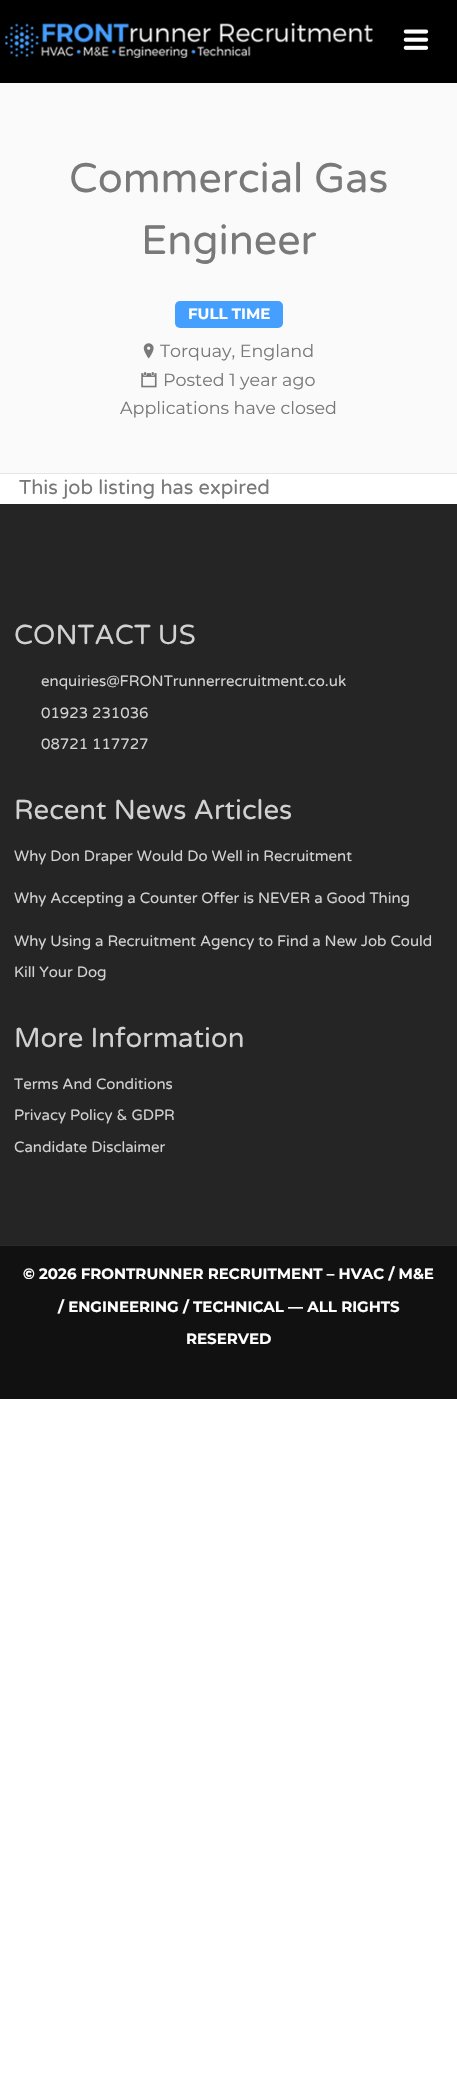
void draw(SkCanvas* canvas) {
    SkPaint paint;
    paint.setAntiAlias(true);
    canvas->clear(0xFFFFFFFF);
    paint.setColor(0xFF000000);
    canvas->drawRect(SkRect::MakeXYWH(0, 0, 457, 83), paint);
    canvas->drawImageRect(SkImages::DeferredFromEncodedData(SkData::MakeFromFileName("img1.png")), SkRect::MakeXYWH(5, 22, 368, 36), SkSamplingOptions());
    canvas->drawImageRect(SkImages::DeferredFromEncodedData(SkData::MakeFromFileName("img2.png")), SkRect::MakeXYWH(403, 29, 26, 21), SkSamplingOptions());
    paint.setColor(0xFFFAFAFA);
    canvas->drawRect(SkRect::MakeXYWH(0, 83, 457, 390), paint);
    paint.setColor(0xFFE7E7E7);
    canvas->drawRect(SkRect::MakeXYWH(0, 473, 457, 1), paint);
    SkFont font1(fontMgr->matchFamilyStyle("Varela Round", SkFontStyle::Normal()), 41.25f);
    font1.setSubpixel(true);
    paint.setColor(0xFF797979);
    canvas->drawString("Commercial Gas", 69, 192, font1, paint);
    canvas->drawString("Engineer", 141, 254, font1, paint);
    paint.setColor(0xFF459FFF);
    canvas->drawRoundRect(SkRect::MakeXYWH(175, 301, 108, 27), 5, 5, paint);
    SkFont font2(fontMgr->matchFamilyStyle("Montserrat", SkFontStyle::Bold()), 15);
    font2.setSubpixel(true);
    paint.setColor(0xFFFFFFFF);
    canvas->drawString("FULL TIME", 188, 319, font2, paint);
    canvas->drawImageRect(SkImages::DeferredFromEncodedData(SkData::MakeFromFileName("img3.png")), SkRect::MakeXYWH(143, 343, 11, 16), SkSamplingOptions());
    SkFont font3(fontMgr->matchFamilyStyle("Montserrat", SkFontStyle::Normal()), 17.5f);
    font3.setSubpixel(true);
    paint.setColor(0xFF797979);
    canvas->drawString("Torquay, England", 160, 357, font3, paint);
    canvas->drawImageRect(SkImages::DeferredFromEncodedData(SkData::MakeFromFileName("img4.png")), SkRect::MakeXYWH(141, 372, 16, 16), SkSamplingOptions());
    canvas->drawString("Posted 1 year ago", 163, 386, font3, paint);
    canvas->drawString("Applications have closed", 120, 414, font3, paint);
    SkFont font4(fontMgr->matchFamilyStyle("Varela Round", SkFontStyle::Normal()), 20);
    font4.setSubpixel(true);
    canvas->drawString("This job listing has expired", 19, 494, font4, paint);
    paint.setColor(0xFF252525);
    canvas->drawRect(SkRect::MakeXYWH(0, 504, 457, 741), paint);
    SkFont font5(fontMgr->matchFamilyStyle("Varela Round", SkFontStyle::Normal()), 27.5f);
    font5.setSubpixel(true);
    paint.setColor(0xFFD1D1D1);
    canvas->drawString("CONTACT US", 14, 644, font5, paint);
    SkFont font6(fontMgr->matchFamilyStyle("Varela Round", SkFontStyle::Normal()), 15);
    font6.setSubpixel(true);
    canvas->drawString("enquiries@FRONTrunnerrecruitment.co.uk", 41, 686, font6, paint);
    canvas->drawString("01923 231036", 41, 718, font6, paint);
    canvas->drawString("08721 117727", 41, 749, font6, paint);
    canvas->drawString("Recent News Articles", 14, 819, font5, paint);
    canvas->drawString("Why Don Draper Would Do Well in Recruitment", 14, 861, font6, paint);
    canvas->drawString("Why Accepting a Counter Offer is NEVER a Good Thing", 14, 903, font6, paint);
    canvas->drawString("Why Using a Recruitment Agency to Find a New Job Could", 14, 946, font6, paint);
    canvas->drawString("Kill Your Dog", 14, 977, font6, paint);
    canvas->drawString("More Information", 14, 1047, font5, paint);
    canvas->drawString("Terms And Conditions", 14, 1089, font6, paint);
    canvas->drawString("Privacy Policy & GDPR", 14, 1120, font6, paint);
    canvas->drawString("Candidate Disclaimer", 14, 1152, font6, paint);
    paint.setColor(0xFF111111);
    canvas->drawRect(SkRect::MakeXYWH(0, 1246, 457, 153), paint);
    paint.setColor(0xFF292929);
    canvas->drawRect(SkRect::MakeXYWH(0, 1245, 457, 1), paint);
    paint.setColor(0xFFFFFFFF);
    canvas->drawString("© 2026 FRONTRUNNER RECRUITMENT – HVAC / M&E", 23, 1279, font2, paint);
    canvas->drawString("/ ENGINEERING / TECHNICAL — ALL RIGHTS", 58, 1312, font2, paint);
    canvas->drawString("RESERVED", 186, 1344, font2, paint);
}
